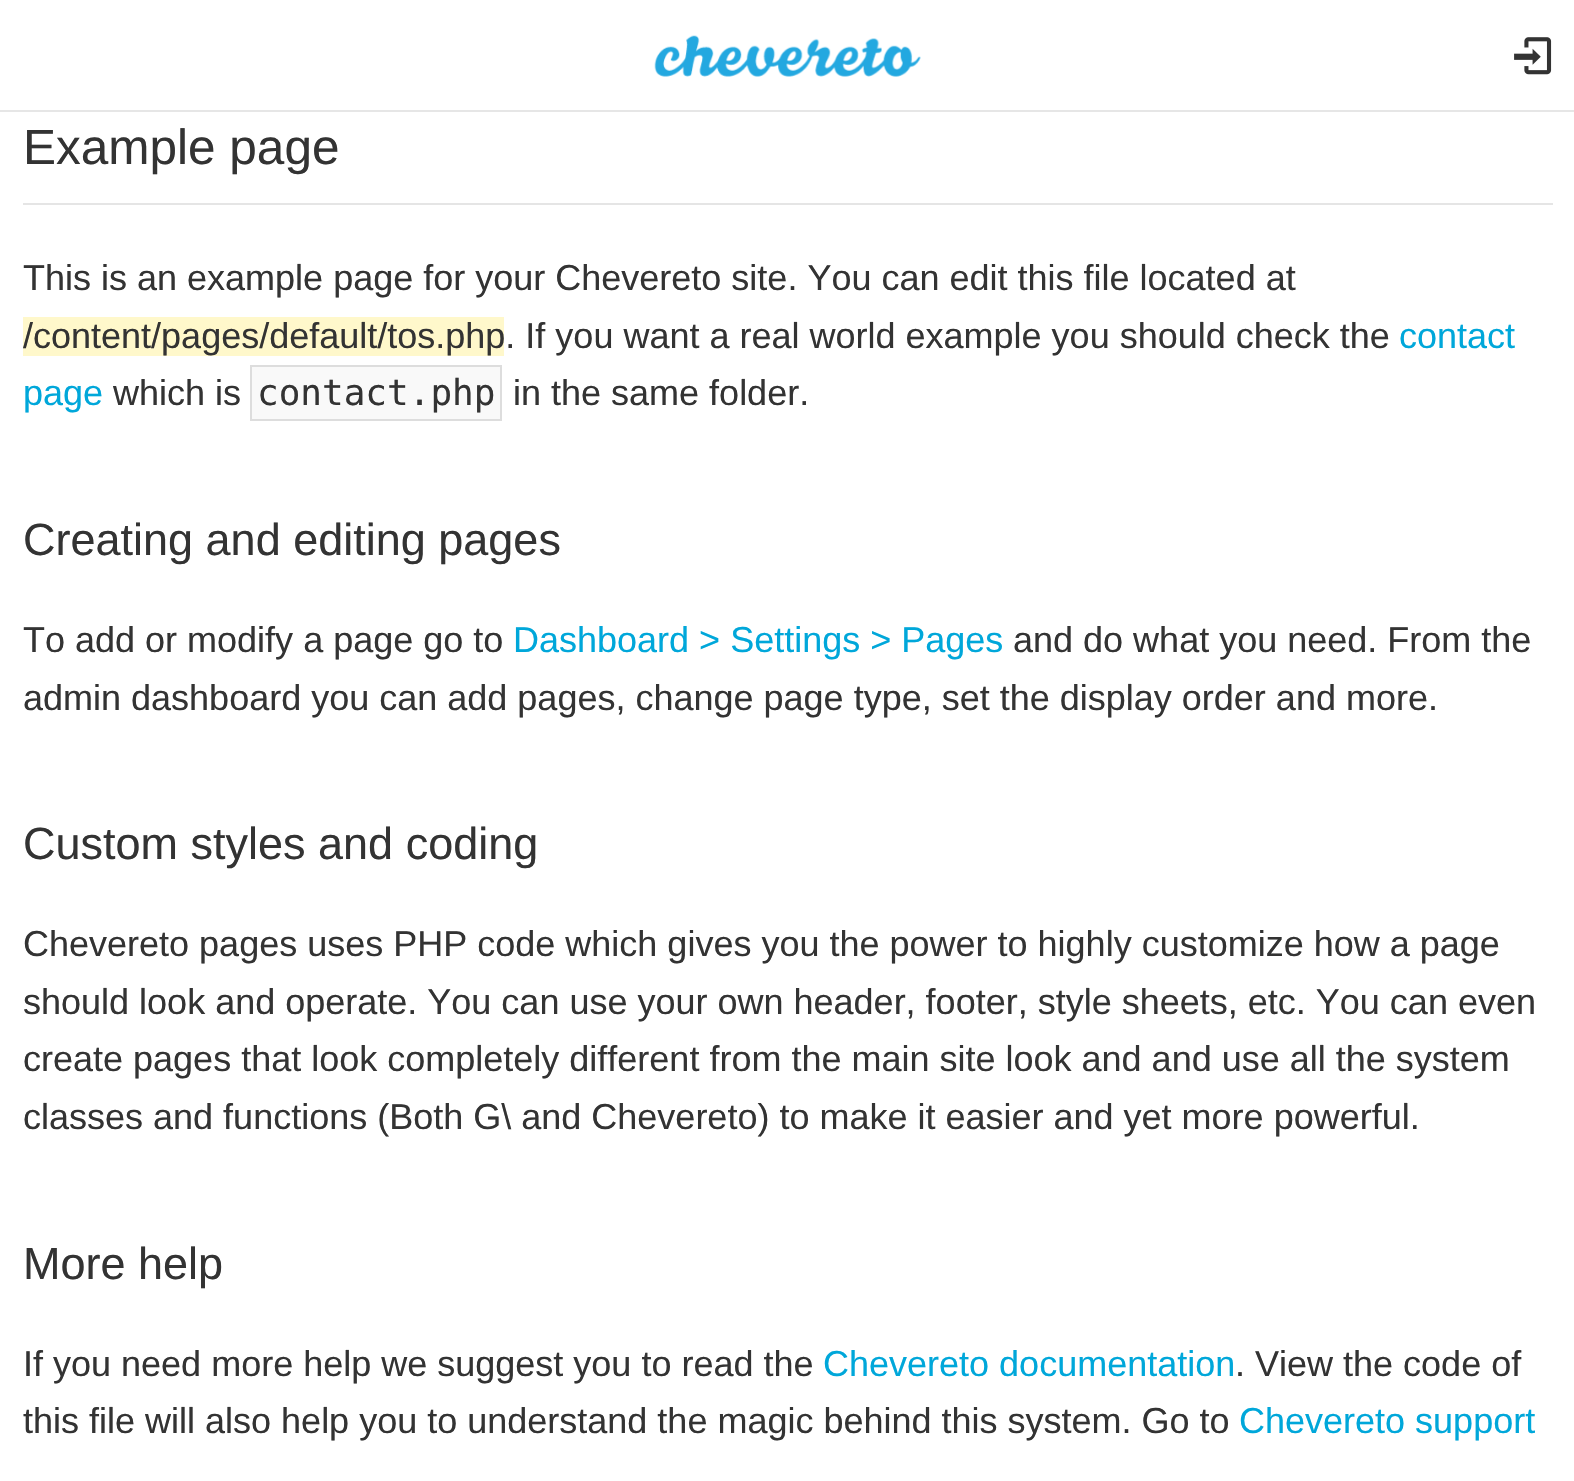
void draw(SkCanvas* canvas) {
    SkPaint paint;
    paint.setAntiAlias(true);
    canvas->clear(0xFFFFFFFF);
    paint.setColor(0xFFE6E6E6);
    canvas->drawRect(SkRect::MakeXYWH(0, 110, 1574, 2), paint);
    canvas->drawImageRect(SkImages::DeferredFromEncodedData(SkData::MakeFromFileName("img1.png")), SkRect::MakeXYWH(654, 35, 267, 42), SkSamplingOptions());
    canvas->drawImageRect(SkImages::DeferredFromEncodedData(SkData::MakeFromFileName("img2.png")), SkRect::MakeXYWH(1514, 37, 38, 38), SkSamplingOptions());
    paint.setColor(0xFFE5E5E5);
    canvas->drawRect(SkRect::MakeXYWH(23, 203, 1530, 2), paint);
    SkFont font1(fontMgr->matchFamilyStyle("Liberation Sans", SkFontStyle::Normal()), 49.5f);
    font1.setSubpixel(true);
    paint.setColor(0xFF333333);
    canvas->drawString("Example page", 23, 164, font1, paint);
    SkFont font2(fontMgr->matchFamilyStyle("Liberation Sans", SkFontStyle::Normal()), 36);
    font2.setSubpixel(true);
    canvas->drawString("This is an example page for your Chevereto site. You can edit this file located at", 23, 290, font2, paint);
    paint.setColor(0xFFFFF8CB);
    canvas->drawRect(SkRect::MakeXYWH(23, 317, 481, 39), paint);
    paint.setColor(0xFF333333);
    canvas->drawString("/content/pages/default/tos.php. If you want a real world example you should check the", 23, 348, font2, paint);
    paint.setColor(0xFF00A7DA);
    canvas->drawString("contact", 1399, 348, font2, paint);
    canvas->drawString("page", 23, 405, font2, paint);
    paint.setColor(0xFF333333);
    canvas->drawString("which is", 113, 405, font2, paint);
    paint.setColor(0xFFF9F9F9);
    canvas->drawRect(SkRect::MakeXYWH(251, 366, 250, 54), paint);
    paint.setStyle(SkPaint::kStroke_Style);
    paint.setStrokeWidth(2);
    paint.setColor(0xFFDDDDDD);
    canvas->drawRect(SkRect::MakeXYWH(251, 366, 250, 54), paint);
    SkFont font3(fontMgr->matchFamilyStyle("DejaVu Sans Mono", SkFontStyle::Normal()), 36);
    font3.setSubpixel(true);
    paint.setStyle(SkPaint::kFill_Style);
    paint.setColor(0xFF333333);
    canvas->drawString("contact.php", 257, 405, font3, paint);
    canvas->drawString("in the same folder.", 513, 405, font2, paint);
    SkFont font4(fontMgr->matchFamilyStyle("Liberation Sans", SkFontStyle::Normal()), 45);
    font4.setSubpixel(true);
    canvas->drawString("Creating and editing pages", 23, 555, font4, paint);
    canvas->drawString("To add or modify a page go to", 23, 652, font2, paint);
    paint.setColor(0xFF00A7DA);
    canvas->drawString("Dashboard > Settings > Pages", 513, 652, font2, paint);
    paint.setColor(0xFF333333);
    canvas->drawString("and do what you need. From the", 1013, 652, font2, paint);
    canvas->drawString("admin dashboard you can add pages, change page type, set the display order and more.", 23, 710, font2, paint);
    canvas->drawString("Custom styles and coding", 23, 859, font4, paint);
    canvas->drawString("Chevereto pages uses PHP code which gives you the power to highly customize how a page", 23, 956, font2, paint);
    canvas->drawString("should look and operate. You can use your own header, footer, style sheets, etc. You can even", 23, 1014, font2, paint);
    canvas->drawString("create pages that look completely different from the main site look and and use all the system", 23, 1071, font2, paint);
    canvas->drawString("classes and functions (Both G\\ and Chevereto) to make it easier and yet more powerful.", 23, 1129, font2, paint);
    canvas->drawString("More help", 23, 1279, font4, paint);
    canvas->drawString("If you need more help we suggest you to read the", 23, 1376, font2, paint);
    paint.setColor(0xFF00A7DA);
    canvas->drawString("Chevereto documentation", 823, 1376, font2, paint);
    paint.setColor(0xFF333333);
    canvas->drawString(". View the code of", 1235, 1376, font2, paint);
    canvas->drawString("this file will also help you to understand the magic behind this system. Go to", 23, 1433, font2, paint);
    paint.setColor(0xFF00A7DA);
    canvas->drawString("Chevereto support", 1239, 1433, font2, paint);
}
